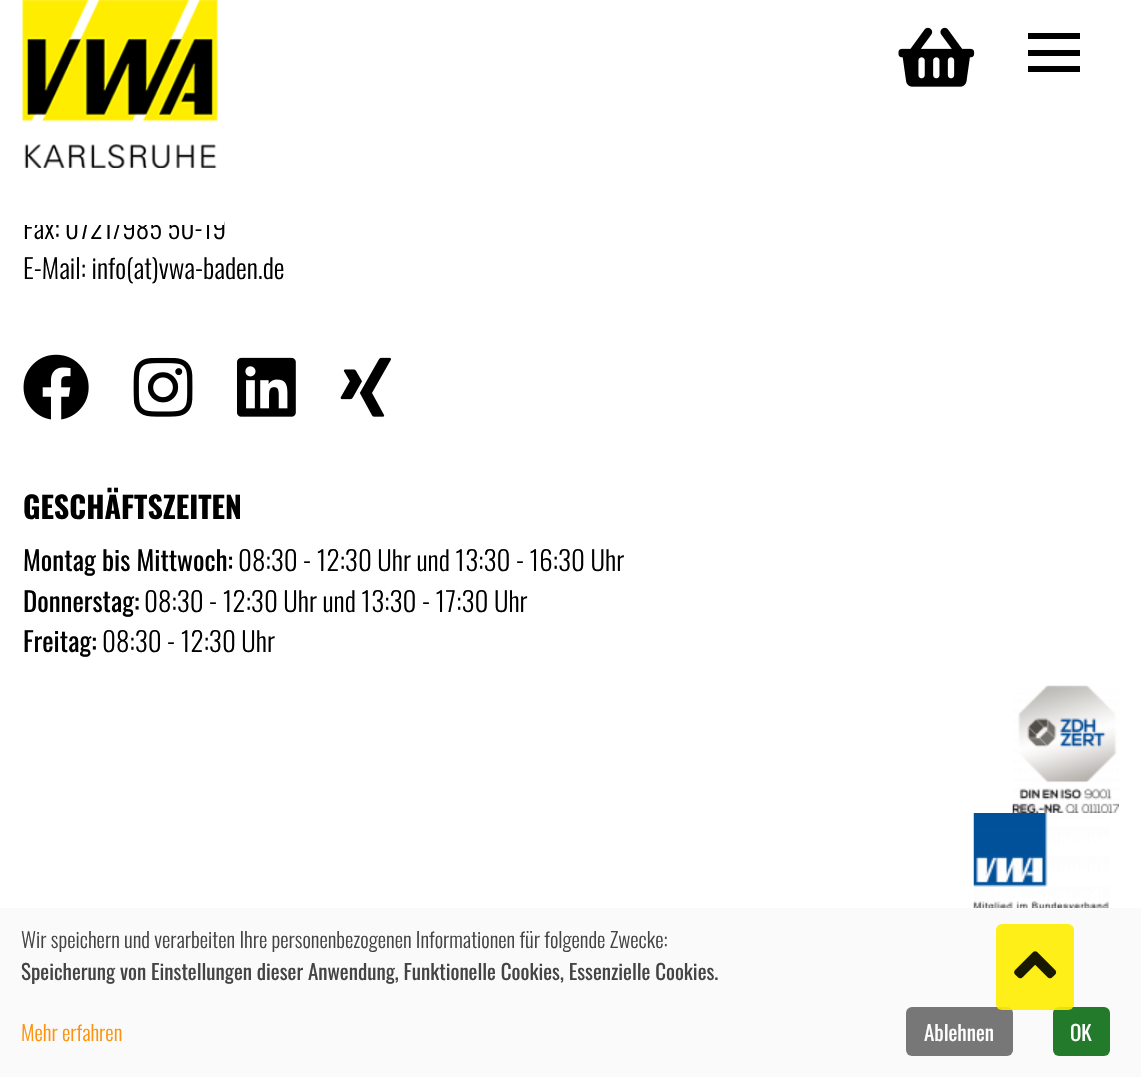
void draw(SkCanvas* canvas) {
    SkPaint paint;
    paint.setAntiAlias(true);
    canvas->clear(0xFFFFFFFF);
    SkFont font1(fontMgr->matchFamilyStyle("Oswald", SkFontStyle(300, SkFontStyle::kNormal_Width, SkFontStyle::kUpright_Slant)), 27);
    font1.setSubpixel(true);
    paint.setColor(0xFF000000);
    canvas->drawString("Fax: 0721/985 50-19", 23, 239, font1, paint);
    paint.setColor(0xFFFFFFFF);
    canvas->drawRect(SkRect::MakeXYWH(24, 216, 200, 9), paint);
    canvas->drawImageRect(SkImages::DeferredFromEncodedData(SkData::MakeFromFileName("img1.png")), SkRect::MakeXYWH(22, 0, 196, 168), SkSamplingOptions());
    canvas->drawImageRect(SkImages::DeferredFromEncodedData(SkData::MakeFromFileName("img2.png")), SkRect::MakeXYWH(898, 27, 77, 60), SkSamplingOptions());
    paint.setColor(0xFF000000);
    canvas->drawRect(SkRect::MakeXYWH(1028, 33, 52, 6), paint);
    canvas->drawRect(SkRect::MakeXYWH(1028, 50, 52, 6), paint);
    canvas->drawRect(SkRect::MakeXYWH(1028, 66, 52, 6), paint);
    canvas->drawString("E-Mail: info(at)vwa-baden.de", 23, 279, font1, paint);
    canvas->drawImageRect(SkImages::DeferredFromEncodedData(SkData::MakeFromFileName("img3.png")), SkRect::MakeXYWH(23, 354, 66, 66), SkSamplingOptions());
    canvas->drawImageRect(SkImages::DeferredFromEncodedData(SkData::MakeFromFileName("img4.png")), SkRect::MakeXYWH(133, 357, 60, 60), SkSamplingOptions());
    canvas->drawImageRect(SkImages::DeferredFromEncodedData(SkData::MakeFromFileName("img5.png")), SkRect::MakeXYWH(237, 357, 59, 60), SkSamplingOptions());
    canvas->drawImageRect(SkImages::DeferredFromEncodedData(SkData::MakeFromFileName("img6.png")), SkRect::MakeXYWH(340, 357, 51, 60), SkSamplingOptions());
    SkFont font2(fontMgr->matchFamilyStyle("Oswald", SkFontStyle::Bold()), 30);
    font2.setSubpixel(true);
    canvas->drawString("GESCHÄFTSZEITEN", 23, 519, font2, paint);
    SkFont font3(fontMgr->matchFamilyStyle("Oswald", SkFontStyle::Normal()), 27);
    font3.setSubpixel(true);
    canvas->drawString("Montag bis Mittwoch:", 23, 571, font3, paint);
    canvas->drawString("08:30 - 12:30 Uhr und 13:30 - 16:30 Uhr", 238, 571, font1, paint);
    canvas->drawString("Donnerstag:", 23, 612, font3, paint);
    canvas->drawString("08:30 - 12:30 Uhr und 13:30 - 17:30 Uhr", 144, 612, font1, paint);
    canvas->drawString("Freitag:", 23, 652, font3, paint);
    canvas->drawString("08:30 - 12:30 Uhr", 102, 652, font1, paint);
    canvas->drawImageRect(SkImages::DeferredFromEncodedData(SkData::MakeFromFileName("img7.png")), SkRect::MakeXYWH(1012, 685, 107, 128), SkSamplingOptions());
    canvas->drawImageRect(SkImages::DeferredFromEncodedData(SkData::MakeFromFileName("img8.png")), SkRect::MakeXYWH(973, 813, 136, 95), SkSamplingOptions());
    paint.setColor(0xFFFAFAFA);
    canvas->drawRect(SkRect::MakeXYWH(0, 908, 1141, 169), paint);
    paint.setColor(0xFF777777);
    canvas->drawRoundRect(SkRect::MakeXYWH(906, 1007, 107, 49), 6, 6, paint);
    paint.setColor(0xFF227A2A);
    canvas->drawRoundRect(SkRect::MakeXYWH(1053, 1007, 57, 49), 6, 6, paint);
    paint.setColor(0xE6FFED00);
    canvas->drawRoundRect(SkRect::MakeXYWH(996, 924, 78, 86), 6, 6, paint);
    canvas->drawImageRect(SkImages::DeferredFromEncodedData(SkData::MakeFromFileName("img9.png")), SkRect::MakeXYWH(1014, 951, 43, 28), SkSamplingOptions());
    SkFont font4(fontMgr->matchFamilyStyle("Oswald", SkFontStyle(300, SkFontStyle::kNormal_Width, SkFontStyle::kUpright_Slant)), 21);
    font4.setSubpixel(true);
    paint.setColor(0xFF444444);
    canvas->drawString("Wir speichern und verarbeiten Ihre personenbezogenen Informationen für folgende Zwecke:", 21, 948, font4, paint);
    SkFont font5(fontMgr->matchFamilyStyle("Oswald", SkFontStyle::Normal()), 21);
    font5.setSubpixel(true);
    canvas->drawString("Speicherung von Einstellungen dieser Anwendung, Funktionelle Cookies, Essenzielle Cookies.", 21, 980, font5, paint);
    paint.setColor(0xFFFD930C);
    canvas->drawString("Mehr erfahren", 21, 1041, font4, paint);
    paint.setColor(0xFFFFFFFF);
    canvas->drawString("Ablehnen", 924, 1041, font5, paint);
    canvas->drawString("OK", 1070, 1041, font5, paint);
}
